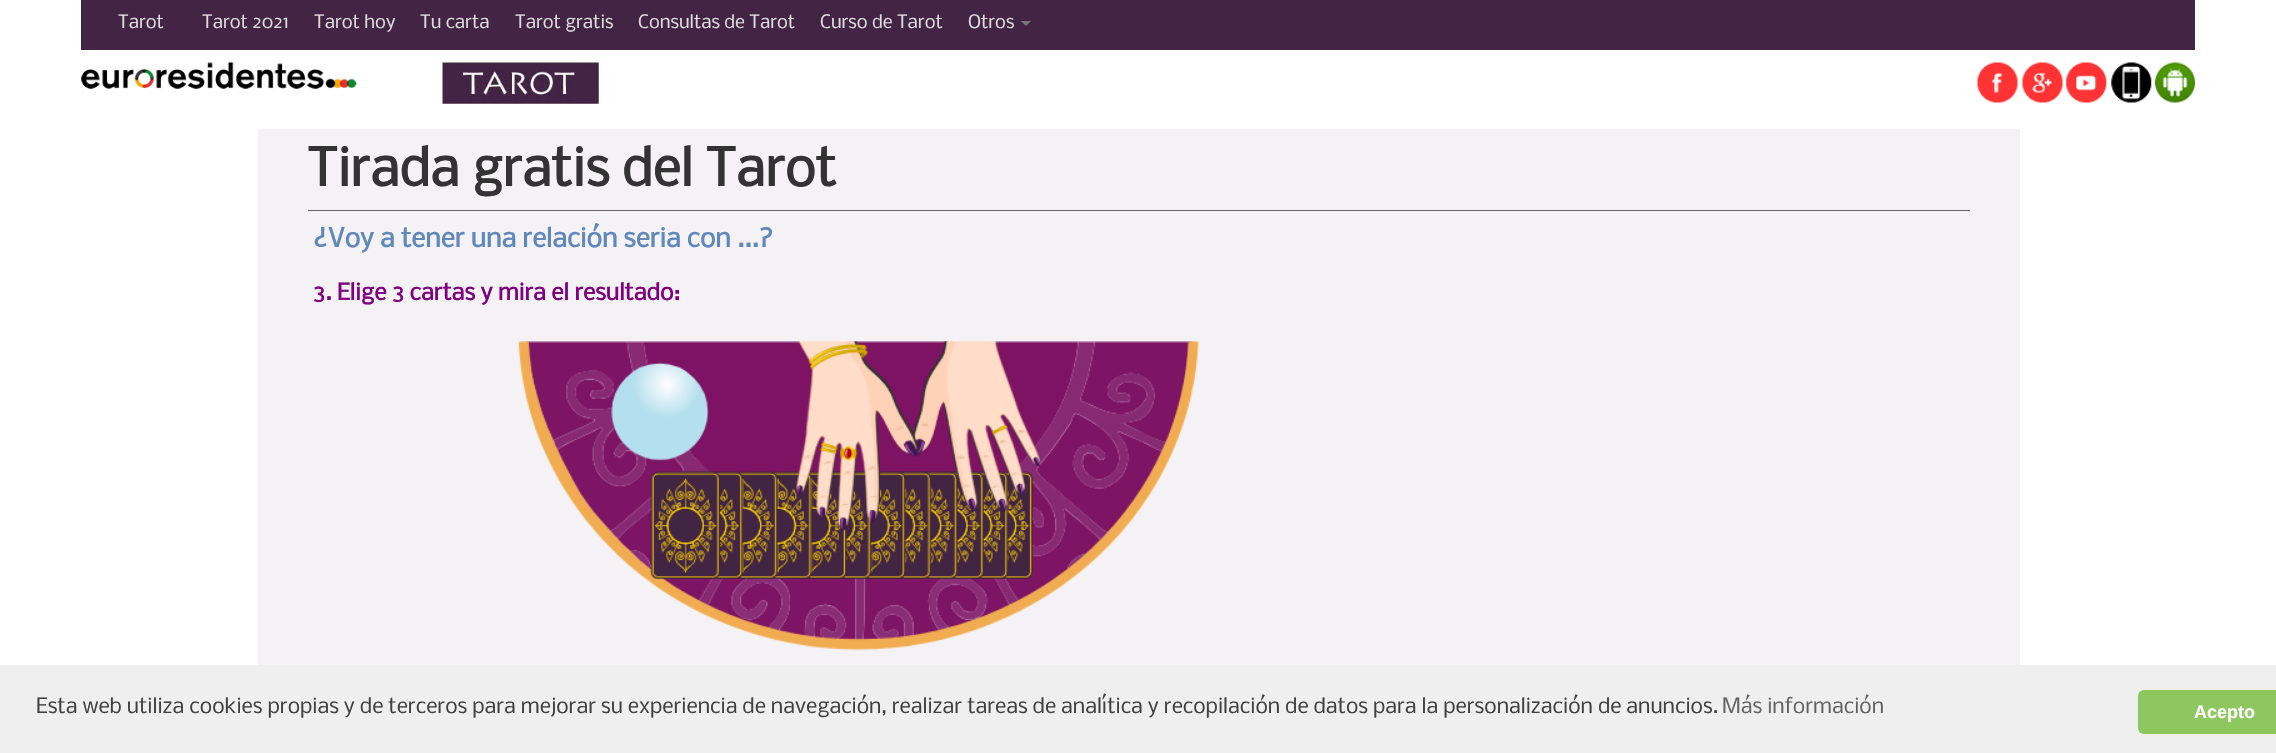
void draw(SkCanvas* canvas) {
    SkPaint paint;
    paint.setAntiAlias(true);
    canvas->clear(0xFFFFFFFF);
    paint.setColor(0xFF432444);
    canvas->drawRect(SkRect::MakeXYWH(81, 0, 2114, 50), paint);
    SkFont font1(fontMgr->matchFamilyStyle("Nobile", SkFontStyle::Normal()), 17.5f);
    font1.setSubpixel(true);
    paint.setColor(0xFFDDDDDD);
    canvas->drawString("Tarot", 118, 28, font1, paint);
    canvas->drawString("Tarot 2021", 202, 28, font1, paint);
    canvas->drawString("Tarot hoy", 314, 28, font1, paint);
    canvas->drawString("Tu carta", 420, 28, font1, paint);
    canvas->drawString("Tarot gratis", 515, 28, font1, paint);
    canvas->drawString("Consultas de Tarot", 638, 28, font1, paint);
    canvas->drawString("Curso de Tarot", 820, 28, font1, paint);
    canvas->drawString("Otros", 968, 28, font1, paint);
    paint.setColor(0xFF777777);
    canvas->drawPath(SkPathBuilder().moveTo(1021, 21).lineTo(1031, 21).lineTo(1026, 26).close().detach(), paint);
    canvas->drawImageRect(SkImages::DeferredFromEncodedData(SkData::MakeFromFileName("img1.png")), SkRect::MakeXYWH(81, 62, 276, 27), SkSamplingOptions());
    canvas->drawImageRect(SkImages::DeferredFromEncodedData(SkData::MakeFromFileName("img2.png")), SkRect::MakeXYWH(442, 62, 157, 42), SkSamplingOptions());
    canvas->drawImageRect(SkImages::DeferredFromEncodedData(SkData::MakeFromFileName("img3.png")), SkRect::MakeXYWH(1977, 62, 41, 41), SkSamplingOptions());
    canvas->drawImageRect(SkImages::DeferredFromEncodedData(SkData::MakeFromFileName("img4.png")), SkRect::MakeXYWH(2022, 62, 41, 41), SkSamplingOptions());
    canvas->drawImageRect(SkImages::DeferredFromEncodedData(SkData::MakeFromFileName("img5.png")), SkRect::MakeXYWH(2066, 62, 41, 41), SkSamplingOptions());
    canvas->drawImageRect(SkImages::DeferredFromEncodedData(SkData::MakeFromFileName("img6.png")), SkRect::MakeXYWH(2111, 62, 41, 41), SkSamplingOptions());
    canvas->drawImageRect(SkImages::DeferredFromEncodedData(SkData::MakeFromFileName("img7.png")), SkRect::MakeXYWH(2155, 62, 40, 41), SkSamplingOptions());
    paint.setColor(0xFFF4F2F5);
    canvas->drawRect(SkRect::MakeXYWH(258, 129, 1762, 536), paint);
    SkFont font2(fontMgr->matchFamilyStyle("Nobile", SkFontStyle::Bold()), 50);
    font2.setSubpixel(true);
    paint.setColor(0xFF333333);
    canvas->drawString("Tirada gratis del Tarot", 307, 186, font2, paint);
    paint.setColor(0xFF666666);
    canvas->drawRect(SkRect::MakeXYWH(308, 210, 1662, 1), paint);
    SkFont font3(fontMgr->matchFamilyStyle("Nobile", SkFontStyle::Bold()), 25);
    font3.setSubpixel(true);
    paint.setColor(0xFF6088BC);
    canvas->drawString("¿Voy a tener una relación seria con ...?", 313, 247, font3, paint);
    SkFont font4(fontMgr->matchFamilyStyle("Nobile", SkFontStyle::Bold()), 21.9f);
    font4.setSubpixel(true);
    paint.setColor(0xFF800080);
    canvas->drawString("3. Elige 3 cartas y mira el resultado:", 313, 300, font4, paint);
    canvas->drawImageRect(SkImages::DeferredFromEncodedData(SkData::MakeFromFileName("img8.png")), SkRect::MakeXYWH(518, 341, 681, 310), SkSamplingOptions());
    paint.setColor(0xFFEFEFEF);
    canvas->drawRect(SkRect::MakeXYWH(0, 665, 2276, 88), paint);
    SkFont font5(fontMgr->matchFamilyStyle("Nobile", SkFontStyle::Normal()), 20);
    font5.setSubpixel(true);
    paint.setColor(0xFF404040);
    canvas->drawString("Esta web utiliza cookies propias y de terceros para mejorar su experiencia de navegación, realizar tareas de analítica y recopilación de datos para la personalización de anuncios.", 36, 713, font5, paint);
    paint.setColor(0xFF636363);
    canvas->drawString("Más información", 1722, 713, font5, paint);
    paint.setColor(0xFF8EC760);
    canvas->drawRoundRect(SkRect::MakeXYWH(2138, 690, 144, 44), 6, 6, paint);
    SkFont font6(fontMgr->matchFamilyStyle("Liberation Sans", SkFontStyle::Bold()), 18);
    font6.setSubpixel(true);
    paint.setColor(0xFFFFFFFF);
    canvas->drawString("Acepto", 2194, 718, font6, paint);
}
